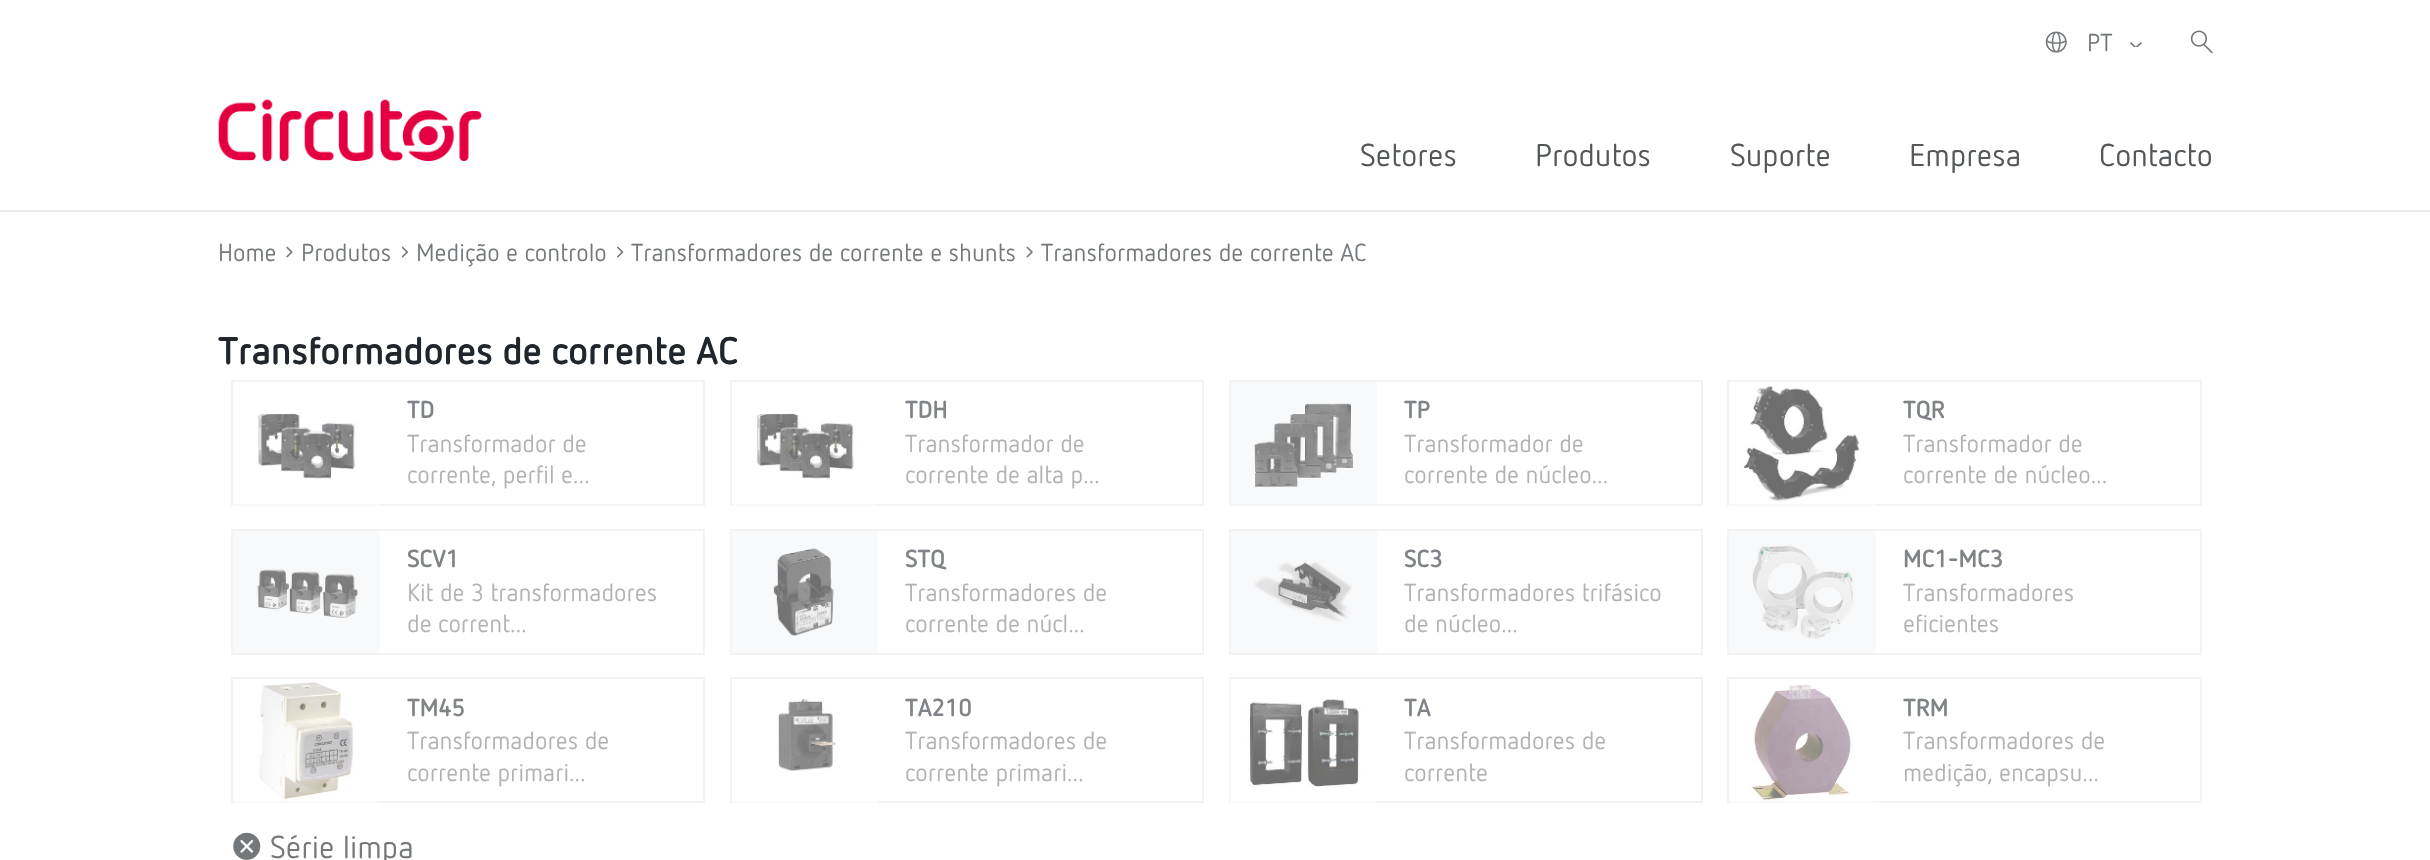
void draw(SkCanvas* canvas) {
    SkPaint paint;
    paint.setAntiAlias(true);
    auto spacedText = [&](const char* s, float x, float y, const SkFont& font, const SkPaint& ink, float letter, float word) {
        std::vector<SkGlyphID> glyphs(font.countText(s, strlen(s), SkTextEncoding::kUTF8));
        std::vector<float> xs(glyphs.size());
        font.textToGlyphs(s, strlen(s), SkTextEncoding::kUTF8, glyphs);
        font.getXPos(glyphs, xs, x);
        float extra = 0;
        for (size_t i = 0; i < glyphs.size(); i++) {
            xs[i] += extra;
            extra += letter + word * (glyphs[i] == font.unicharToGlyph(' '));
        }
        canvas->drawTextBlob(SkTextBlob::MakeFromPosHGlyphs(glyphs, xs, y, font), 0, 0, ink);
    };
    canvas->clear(0xFFFFFFFF);
    paint.setColor(0xFFECECEC);
    canvas->drawRect(SkRect::MakeXYWH(0, 210, 2430, 2), paint);
    canvas->drawImageRect(SkImages::DeferredFromEncodedData(SkData::MakeFromFileName("img1.png")), SkRect::MakeXYWH(218, 99, 264, 62), SkSamplingOptions());
    canvas->drawImageRect(SkImages::DeferredFromEncodedData(SkData::MakeFromFileName("img2.png")), SkRect::MakeXYWH(2045, 31, 22, 22), SkSamplingOptions());
    canvas->drawImageRect(SkImages::DeferredFromEncodedData(SkData::MakeFromFileName("img3.png")), SkRect::MakeXYWH(2130, 42, 12, 5), SkSamplingOptions());
    SkFont font1(fontMgr->matchFamilyStyle("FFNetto", SkFontStyle::Normal()), 24.5f);
    font1.setSubpixel(true);
    paint.setColor(0xFF75787B);
    canvas->drawString("PT", 2087, 51, font1, paint);
    canvas->drawImageRect(SkImages::DeferredFromEncodedData(SkData::MakeFromFileName("img4.png")), SkRect::MakeXYWH(2190, 30, 23, 24), SkSamplingOptions());
    SkFont font2(fontMgr->matchFamilyStyle("FFNetto", SkFontStyle::Normal()), 31.5f);
    font2.setSubpixel(true);
    paint.setColor(0xFF53565A);
    canvas->drawString("Setores", 1360, 166, font2, paint);
    canvas->drawString("Produtos", 1535, 166, font2, paint);
    canvas->drawString("Suporte", 1730, 166, font2, paint);
    canvas->drawString("Empresa", 1909, 166, font2, paint);
    canvas->drawString("Contacto", 2099, 166, font2, paint);
    paint.setColor(0xFF75787B);
    canvas->drawString("Home", 218, 261, font1, paint);
    canvas->drawImageRect(SkImages::DeferredFromEncodedData(SkData::MakeFromFileName("img5.png")), SkRect::MakeXYWH(286, 246, 7, 12), SkSamplingOptions());
    canvas->drawString("Produtos", 301, 261, font1, paint);
    canvas->drawImageRect(SkImages::DeferredFromEncodedData(SkData::MakeFromFileName("img6.png")), SkRect::MakeXYWH(401, 246, 7, 12), SkSamplingOptions());
    canvas->drawString("Medição e controlo", 416, 261, font1, paint);
    canvas->drawImageRect(SkImages::DeferredFromEncodedData(SkData::MakeFromFileName("img7.png")), SkRect::MakeXYWH(617, 246, 7, 12), SkSamplingOptions());
    canvas->drawString("Transformadores de corrente e shunts", 631, 261, font1, paint);
    canvas->drawImageRect(SkImages::DeferredFromEncodedData(SkData::MakeFromFileName("img8.png")), SkRect::MakeXYWH(1026, 246, 7, 12), SkSamplingOptions());
    canvas->drawString("Transformadores de corrente AC", 1041, 261, font1, paint);
    SkFont font3(fontMgr->matchFamilyStyle("FFNetto", SkFontStyle::Bold()), 38.5f);
    font3.setSubpixel(true);
    paint.setColor(0xFF20262C);
    spacedText("Transformadores de corrente AC", 218, 364, font3, paint, -0.4f, 0);
    paint.setStyle(SkPaint::kStroke_Style);
    paint.setStrokeWidth(2);
    paint.setColor(0xFFF3F3F3);
    canvas->drawRect(SkRect::MakeXYWH(232, 381, 472, 124), paint);
    canvas->drawImageRect(SkImages::DeferredFromEncodedData(SkData::MakeFromFileName("img9.png")), SkRect::MakeXYWH(233, 413, 147, 93), SkSamplingOptions());
    SkFont font4(fontMgr->matchFamilyStyle("FFNetto", SkFontStyle::Bold()), 24.5f);
    font4.setSubpixel(true);
    paint.setStyle(SkPaint::kFill_Style);
    paint.setColor(0xFF808387);
    spacedText("TD", 407, 418, font4, paint, -0.25f, 0);
    paint.setColor(0xFFB0B2B4);
    canvas->drawString("Transformador de", 407, 452, font1, paint);
    canvas->drawString("corrente, perfil e...", 407, 483, font1, paint);
    paint.setStyle(SkPaint::kStroke_Style);
    paint.setColor(0xFFF3F3F3);
    canvas->drawRect(SkRect::MakeXYWH(731, 381, 472, 124), paint);
    canvas->drawImageRect(SkImages::DeferredFromEncodedData(SkData::MakeFromFileName("img10.png")), SkRect::MakeXYWH(732, 413, 146, 93), SkSamplingOptions());
    paint.setStyle(SkPaint::kFill_Style);
    paint.setColor(0xFF808387);
    spacedText("TDH", 905, 418, font4, paint, -0.25f, 0);
    paint.setColor(0xFFB0B2B4);
    canvas->drawString("Transformador de", 905, 452, font1, paint);
    canvas->drawString("corrente de alta p...", 905, 483, font1, paint);
    paint.setStyle(SkPaint::kStroke_Style);
    paint.setColor(0xFFF3F3F3);
    canvas->drawRect(SkRect::MakeXYWH(1230, 381, 472, 124), paint);
    canvas->drawImageRect(SkImages::DeferredFromEncodedData(SkData::MakeFromFileName("img11.png")), SkRect::MakeXYWH(1231, 382, 146, 122), SkSamplingOptions());
    paint.setStyle(SkPaint::kFill_Style);
    paint.setColor(0xFF808387);
    spacedText("TP", 1404, 418, font4, paint, -0.25f, 0);
    paint.setColor(0xFFB0B2B4);
    canvas->drawString("Transformador de", 1404, 452, font1, paint);
    canvas->drawString("corrente de núcleo...", 1404, 483, font1, paint);
    paint.setStyle(SkPaint::kStroke_Style);
    paint.setColor(0xFFF3F3F3);
    canvas->drawRect(SkRect::MakeXYWH(1728, 381, 473, 124), paint);
    canvas->drawImageRect(SkImages::DeferredFromEncodedData(SkData::MakeFromFileName("img12.png")), SkRect::MakeXYWH(1729, 386, 147, 120), SkSamplingOptions());
    paint.setStyle(SkPaint::kFill_Style);
    paint.setColor(0xFF808387);
    spacedText("TQR", 1903, 418, font4, paint, -0.25f, 0);
    paint.setColor(0xFFB0B2B4);
    canvas->drawString("Transformador de", 1903, 452, font1, paint);
    canvas->drawString("corrente de núcleo...", 1903, 483, font1, paint);
    paint.setStyle(SkPaint::kStroke_Style);
    paint.setColor(0xFFF3F3F3);
    canvas->drawRect(SkRect::MakeXYWH(232, 530, 472, 124), paint);
    canvas->drawImageRect(SkImages::DeferredFromEncodedData(SkData::MakeFromFileName("img13.png")), SkRect::MakeXYWH(233, 531, 147, 122), SkSamplingOptions());
    paint.setStyle(SkPaint::kFill_Style);
    paint.setColor(0xFF808387);
    spacedText("SCV1", 407, 567, font4, paint, -0.25f, 0);
    paint.setColor(0xFFB0B2B4);
    canvas->drawString("Kit de 3 transformadores", 407, 601, font1, paint);
    canvas->drawString("de corrent...", 407, 632, font1, paint);
    paint.setStyle(SkPaint::kStroke_Style);
    paint.setColor(0xFFF3F3F3);
    canvas->drawRect(SkRect::MakeXYWH(731, 530, 472, 124), paint);
    canvas->drawImageRect(SkImages::DeferredFromEncodedData(SkData::MakeFromFileName("img14.png")), SkRect::MakeXYWH(732, 531, 147, 122), SkSamplingOptions());
    paint.setStyle(SkPaint::kFill_Style);
    paint.setColor(0xFF808387);
    spacedText("STQ", 905, 567, font4, paint, -0.25f, 0);
    paint.setColor(0xFFB0B2B4);
    canvas->drawString("Transformadores de", 905, 601, font1, paint);
    canvas->drawString("corrente de núcl...", 905, 632, font1, paint);
    paint.setStyle(SkPaint::kStroke_Style);
    paint.setColor(0xFFF3F3F3);
    canvas->drawRect(SkRect::MakeXYWH(1230, 530, 472, 124), paint);
    canvas->drawImageRect(SkImages::DeferredFromEncodedData(SkData::MakeFromFileName("img15.png")), SkRect::MakeXYWH(1231, 531, 146, 122), SkSamplingOptions());
    paint.setStyle(SkPaint::kFill_Style);
    paint.setColor(0xFF808387);
    spacedText("SC3", 1404, 567, font4, paint, -0.25f, 0);
    paint.setColor(0xFFB0B2B4);
    canvas->drawString("Transformadores trifásico", 1404, 601, font1, paint);
    canvas->drawString("de núcleo...", 1404, 632, font1, paint);
    paint.setStyle(SkPaint::kStroke_Style);
    paint.setColor(0xFFF3F3F3);
    canvas->drawRect(SkRect::MakeXYWH(1728, 530, 473, 124), paint);
    canvas->drawImageRect(SkImages::DeferredFromEncodedData(SkData::MakeFromFileName("img16.png")), SkRect::MakeXYWH(1729, 531, 147, 122), SkSamplingOptions());
    paint.setStyle(SkPaint::kFill_Style);
    paint.setColor(0xFF808387);
    spacedText("MC1-MC3", 1903, 567, font4, paint, -0.25f, 0);
    paint.setColor(0xFFB0B2B4);
    canvas->drawString("Transformadores", 1903, 601, font1, paint);
    canvas->drawString("eficientes", 1903, 632, font1, paint);
    paint.setStyle(SkPaint::kStroke_Style);
    paint.setColor(0xFFF3F3F3);
    canvas->drawRect(SkRect::MakeXYWH(232, 678, 472, 124), paint);
    canvas->drawImageRect(SkImages::DeferredFromEncodedData(SkData::MakeFromFileName("img17.png")), SkRect::MakeXYWH(233, 682, 147, 121), SkSamplingOptions());
    paint.setStyle(SkPaint::kFill_Style);
    paint.setColor(0xFF808387);
    spacedText("TM45", 407, 716, font4, paint, -0.25f, 0);
    paint.setColor(0xFFB0B2B4);
    canvas->drawString("Transformadores de", 407, 749, font1, paint);
    canvas->drawString("corrente primari...", 407, 781, font1, paint);
    paint.setStyle(SkPaint::kStroke_Style);
    paint.setColor(0xFFF3F3F3);
    canvas->drawRect(SkRect::MakeXYWH(731, 678, 472, 124), paint);
    canvas->drawImageRect(SkImages::DeferredFromEncodedData(SkData::MakeFromFileName("img18.png")), SkRect::MakeXYWH(732, 698, 146, 105), SkSamplingOptions());
    paint.setStyle(SkPaint::kFill_Style);
    paint.setColor(0xFF808387);
    spacedText("TA210", 905, 716, font4, paint, -0.25f, 0);
    paint.setColor(0xFFB0B2B4);
    canvas->drawString("Transformadores de", 905, 749, font1, paint);
    canvas->drawString("corrente primari...", 905, 781, font1, paint);
    paint.setStyle(SkPaint::kStroke_Style);
    paint.setColor(0xFFF3F3F3);
    canvas->drawRect(SkRect::MakeXYWH(1230, 678, 472, 124), paint);
    canvas->drawImageRect(SkImages::DeferredFromEncodedData(SkData::MakeFromFileName("img19.png")), SkRect::MakeXYWH(1230, 680, 147, 123), SkSamplingOptions());
    paint.setStyle(SkPaint::kFill_Style);
    paint.setColor(0xFF808387);
    spacedText("TA", 1404, 716, font4, paint, -0.25f, 0);
    paint.setColor(0xFFB0B2B4);
    canvas->drawString("Transformadores de", 1404, 749, font1, paint);
    canvas->drawString("corrente", 1404, 781, font1, paint);
    paint.setStyle(SkPaint::kStroke_Style);
    paint.setColor(0xFFF3F3F3);
    canvas->drawRect(SkRect::MakeXYWH(1728, 678, 473, 124), paint);
    canvas->drawImageRect(SkImages::DeferredFromEncodedData(SkData::MakeFromFileName("img20.png")), SkRect::MakeXYWH(1729, 684, 147, 119), SkSamplingOptions());
    paint.setStyle(SkPaint::kFill_Style);
    paint.setColor(0xFF808387);
    spacedText("TRM", 1903, 716, font4, paint, -0.25f, 0);
    paint.setColor(0xFFB0B2B4);
    canvas->drawString("Transformadores de", 1903, 749, font1, paint);
    canvas->drawString("medição, encapsu...", 1903, 781, font1, paint);
    canvas->drawImageRect(SkImages::DeferredFromEncodedData(SkData::MakeFromFileName("img21.png")), SkRect::MakeXYWH(233, 832, 28, 28), SkSamplingOptions());
    paint.setColor(0xFF75787B);
    canvas->drawString("Série limpa", 270, 858, font2, paint);
}
